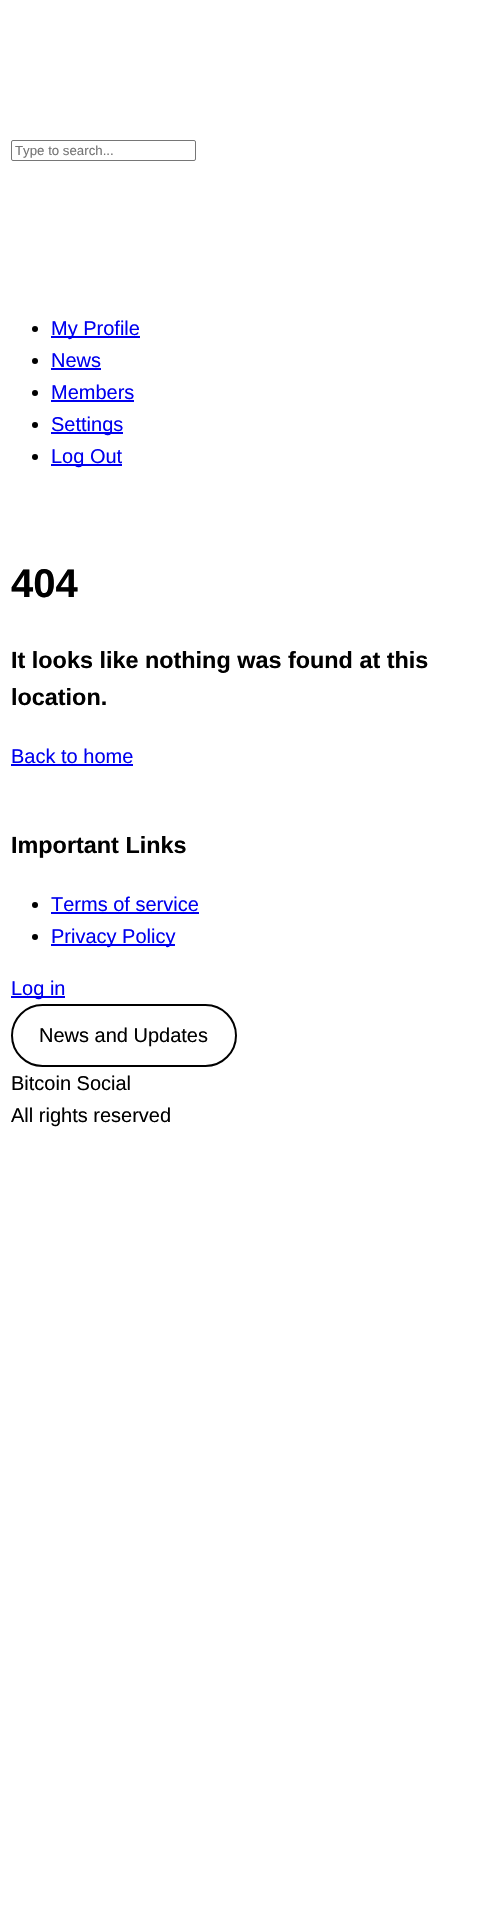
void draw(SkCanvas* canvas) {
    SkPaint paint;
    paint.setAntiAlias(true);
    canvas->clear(0xFFFFFFFF);
    paint.setStyle(SkPaint::kStroke_Style);
    paint.setStrokeWidth(1);
    paint.setColor(0xFF767676);
    canvas->drawRoundRect(SkRect::MakeXYWH(11.5f, 140.5f, 184, 20), 1.5f, 1.5f, paint);
    SkFont font1(fontMgr->matchFamilyStyle("Liberation Sans", SkFontStyle::Normal()), 13.25f);
    font1.setSubpixel(true);
    paint.setStyle(SkPaint::kFill_Style);
    paint.setColor(0xFF757575);
    canvas->drawString("Type to search...", 15, 155, font1, paint);
    paint.setColor(0xFF000000);
    canvas->drawCircle(35, 329, 3, paint);
    paint.setColor(0xFF0000EE);
    canvas->drawRect(SkRect::MakeXYWH(51, 336, 89, 2), paint);
    SkFont font2(fontMgr->matchFamilyStyle("Liberation Sans", SkFontStyle::Normal()), 20);
    font2.setSubpixel(true);
    canvas->drawString("My Profile", 51, 335, font2, paint);
    paint.setColor(0xFF000000);
    canvas->drawCircle(35, 361, 3, paint);
    paint.setColor(0xFF0000EE);
    canvas->drawString("News", 51, 367, font2, paint);
    canvas->drawRect(SkRect::MakeXYWH(51, 368, 50, 2), paint);
    paint.setColor(0xFF000000);
    canvas->drawCircle(35, 393, 3, paint);
    paint.setColor(0xFF0000EE);
    canvas->drawString("Members", 51, 399, font2, paint);
    canvas->drawRect(SkRect::MakeXYWH(51, 400, 83, 2), paint);
    paint.setColor(0xFF000000);
    canvas->drawCircle(35, 425, 3, paint);
    paint.setColor(0xFF0000EE);
    canvas->drawRect(SkRect::MakeXYWH(51, 432, 72, 2), paint);
    canvas->drawString("Settings", 51, 431, font2, paint);
    paint.setColor(0xFF000000);
    canvas->drawCircle(35, 457, 3, paint);
    paint.setColor(0xFF0000EE);
    canvas->drawRect(SkRect::MakeXYWH(51, 464, 71, 2), paint);
    canvas->drawString("Log Out", 51, 463, font2, paint);
    SkFont font3(fontMgr->matchFamilyStyle("Liberation Sans", SkFontStyle::Bold()), 40);
    font3.setSubpixel(true);
    paint.setColor(0xFF000000);
    canvas->drawString("404", 11, 597, font3, paint);
    SkFont font4(fontMgr->matchFamilyStyle("Liberation Sans", SkFontStyle::Bold()), 23.4f);
    font4.setSubpixel(true);
    canvas->drawString("It looks like nothing was found at this", 11, 668, font4, paint);
    canvas->drawString("location.", 11, 705, font4, paint);
    paint.setColor(0xFF0000EE);
    canvas->drawString("Back to home", 11, 763, font2, paint);
    canvas->drawRect(SkRect::MakeXYWH(11, 764, 122, 2), paint);
    paint.setColor(0xFF000000);
    canvas->drawString("Important Links", 11, 853, font4, paint);
    canvas->drawCircle(35, 905, 3, paint);
    paint.setColor(0xFF0000EE);
    canvas->drawString("Terms of service", 51, 911, font2, paint);
    canvas->drawRect(SkRect::MakeXYWH(51, 912, 148, 2), paint);
    paint.setColor(0xFF000000);
    canvas->drawCircle(35, 937, 3, paint);
    paint.setColor(0xFF0000EE);
    canvas->drawRect(SkRect::MakeXYWH(51, 944, 124, 2), paint);
    canvas->drawString("Privacy Policy", 51, 943, font2, paint);
    canvas->drawRect(SkRect::MakeXYWH(11, 996, 54, 2), paint);
    canvas->drawString("Log in", 11, 995, font2, paint);
    paint.setStyle(SkPaint::kStroke_Style);
    paint.setStrokeWidth(2);
    paint.setColor(0xFF000000);
    canvas->drawRoundRect(SkRect::MakeXYWH(12, 1005, 224, 61), 30.5f, 30.5f, paint);
    paint.setStyle(SkPaint::kFill_Style);
    canvas->drawString("News and Updates", 39, 1042, font2, paint);
    canvas->drawString("Bitcoin Social", 11, 1090, font2, paint);
    canvas->drawString("All rights reserved", 11, 1122, font2, paint);
}
